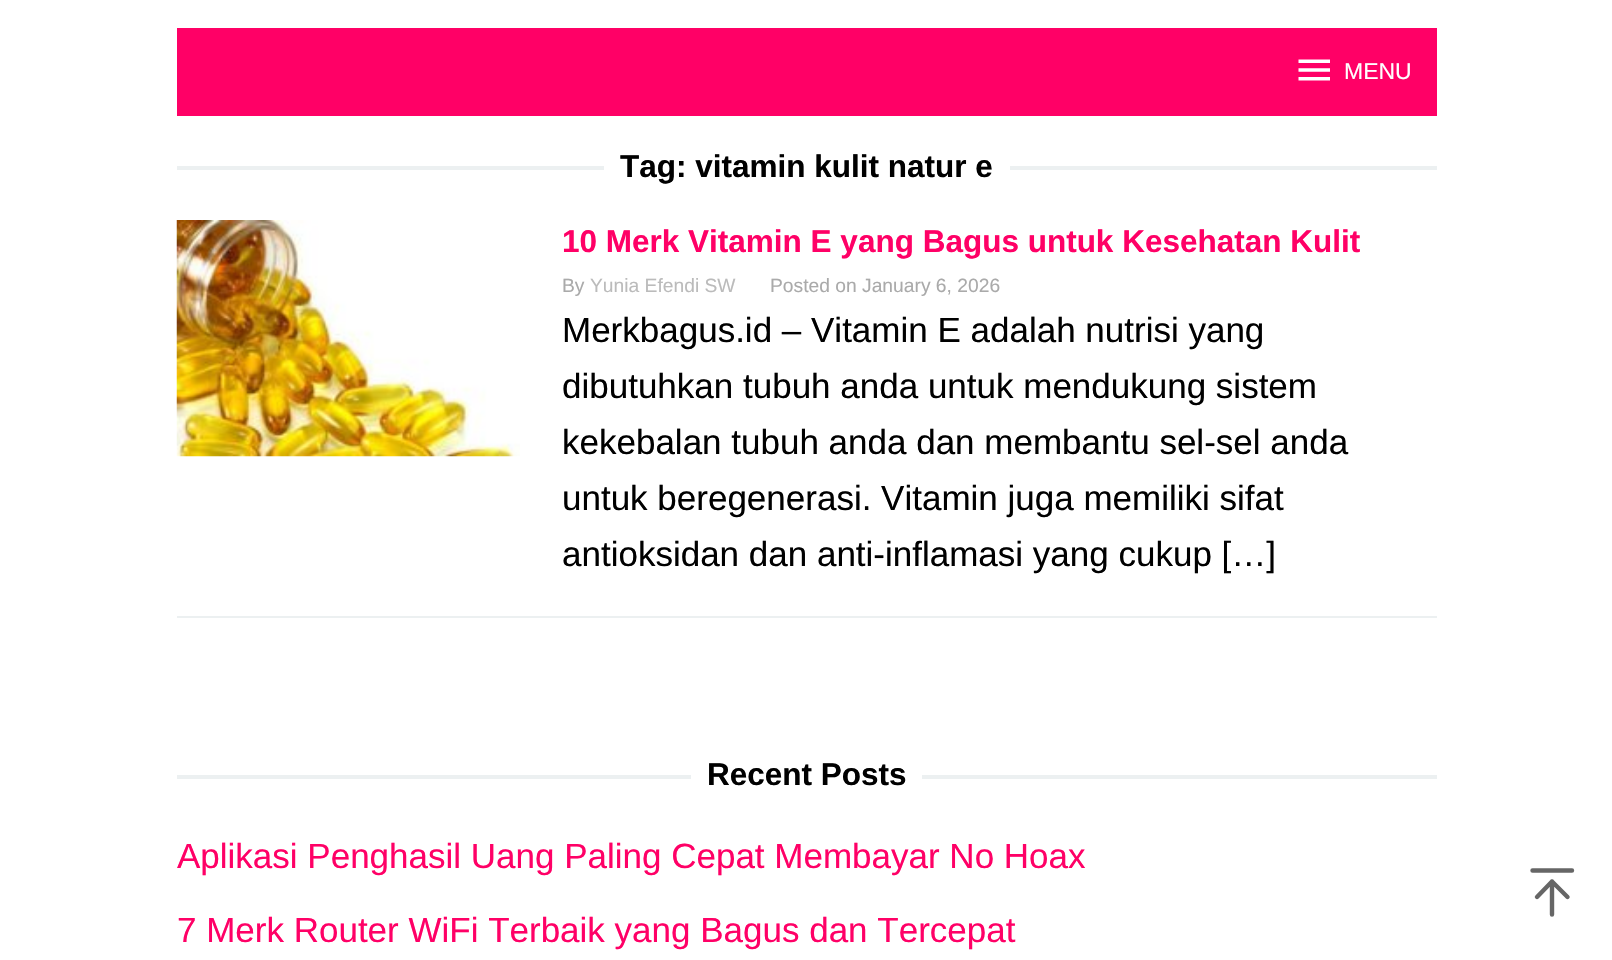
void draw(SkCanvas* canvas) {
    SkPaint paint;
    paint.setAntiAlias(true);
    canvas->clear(0xFFFFFFFF);
    paint.setColor(0xFFFF0066);
    canvas->drawRect(SkRect::MakeXYWH(177, 28, 1260, 88), paint);
    canvas->drawImageRect(SkImages::DeferredFromEncodedData(SkData::MakeFromFileName("img1.png")), SkRect::MakeXYWH(1298, 59, 32, 22), SkSamplingOptions());
    SkFont font1(fontMgr->matchFamilyStyle("Liberation Sans", SkFontStyle::Normal()), 23);
    font1.setSubpixel(true);
    paint.setColor(0xFFFFFFFF);
    canvas->drawString("MENU", 1344, 79, font1, paint);
    paint.setColor(0xFFECF0F1);
    canvas->drawRect(SkRect::MakeXYWH(177, 166, 427, 4), paint);
    SkFont font2(fontMgr->matchFamilyStyle("Liberation Sans", SkFontStyle::Bold()), 31.5f);
    font2.setSubpixel(true);
    paint.setColor(0xFF000000);
    canvas->drawString("Tag: vitamin kulit natur e", 620, 177, font2, paint);
    paint.setColor(0xFFECF0F1);
    canvas->drawRect(SkRect::MakeXYWH(1010, 166, 427, 4), paint);
    canvas->drawRect(SkRect::MakeXYWH(177, 616, 1260, 2), paint);
    canvas->drawImageRect(SkImages::DeferredFromEncodedData(SkData::MakeFromFileName("img2.png")), SkRect::MakeXYWH(176, 220, 344, 237), SkSamplingOptions());
    paint.setColor(0xFFFF0066);
    canvas->drawString("10 Merk Vitamin E yang Bagus untuk Kesehatan Kulit", 562, 252, font2, paint);
    SkFont font3(fontMgr->matchFamilyStyle("Liberation Sans", SkFontStyle::Normal()), 19.25f);
    font3.setSubpixel(true);
    paint.setColor(0xFFAAAAAA);
    canvas->drawString("By", 562, 292, font3, paint);
    paint.setColor(0xFFBBBBBB);
    canvas->drawString("Yunia Efendi SW", 590, 292, font3, paint);
    paint.setColor(0xFFAAAAAA);
    canvas->drawString("Posted on January 6, 2026", 770, 292, font3, paint);
    SkFont font4(fontMgr->matchFamilyStyle("Liberation Sans", SkFontStyle::Normal()), 35);
    font4.setSubpixel(true);
    paint.setColor(0xFF000000);
    canvas->drawString("Merkbagus.id – Vitamin E adalah nutrisi yang", 562, 342, font4, paint);
    canvas->drawString("dibutuhkan tubuh anda untuk mendukung sistem", 562, 398, font4, paint);
    canvas->drawString("kekebalan tubuh anda dan membantu sel-sel anda", 562, 454, font4, paint);
    canvas->drawString("untuk beregenerasi. Vitamin juga memiliki sifat", 562, 510, font4, paint);
    canvas->drawString("antioksidan dan anti-inflamasi yang cukup […]", 562, 566, font4, paint);
    paint.setColor(0xFFECF0F1);
    canvas->drawRect(SkRect::MakeXYWH(177, 775, 514, 4), paint);
    paint.setColor(0xFF000000);
    canvas->drawString("Recent Posts", 707, 785, font2, paint);
    paint.setColor(0xFFECF0F1);
    canvas->drawRect(SkRect::MakeXYWH(922, 775, 515, 4), paint);
    paint.setColor(0xFFFF0066);
    canvas->drawString("Aplikasi Penghasil Uang Paling Cepat Membayar No Hoax", 177, 868, font4, paint);
    canvas->drawString("7 Merk Router WiFi Terbaik yang Bagus dan Tercepat", 177, 942, font4, paint);
    paint.setStyle(SkPaint::kStroke_Style);
    paint.setStrokeWidth(4.4f);
    paint.setStrokeCap(SkPaint::kRound_Cap);
    paint.setStrokeJoin(SkPaint::kRound_Join);
    paint.setColor(0xFF666666);
    canvas->drawPath(SkPathBuilder().moveTo(1552, 914.5f).lineTo(1552, 881.5f).moveTo(1537, 897).lineTo(1552, 881.5f).lineTo(1567.5f, 897).moveTo(1532.5f, 870.5f).lineTo(1572, 870.5f).detach(), paint);
}
